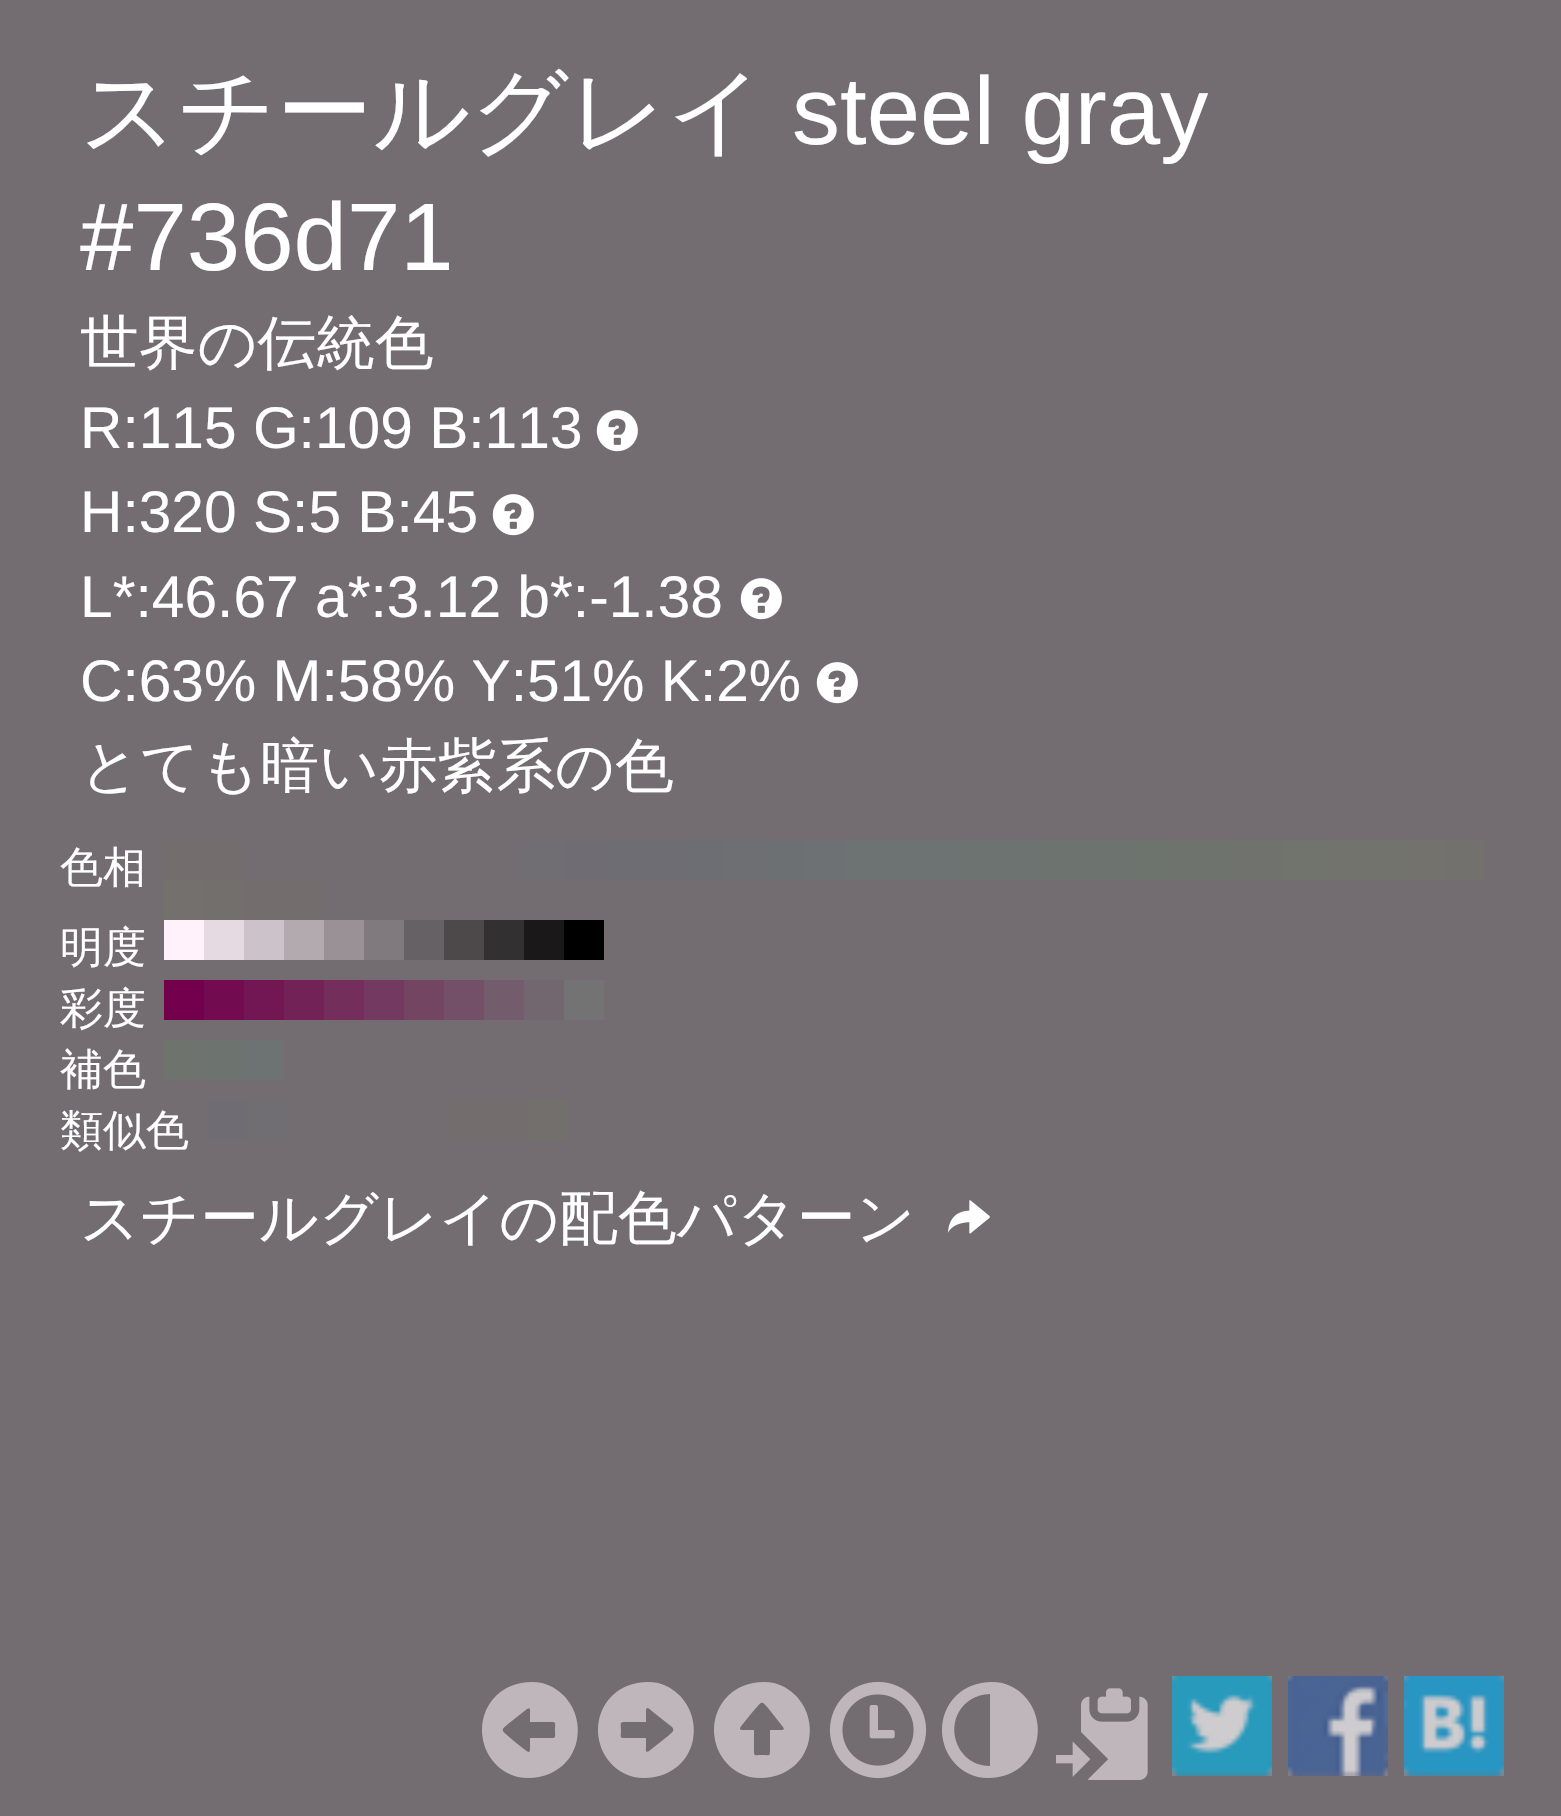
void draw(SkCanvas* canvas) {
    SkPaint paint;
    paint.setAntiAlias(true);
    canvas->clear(0xFF736D71);
    SkFont font1(fontMgr->matchFamilyStyle("WenQuanYi Zen Hei", SkFontStyle(500, SkFontStyle::kNormal_Width, SkFontStyle::kUpright_Slant)), 96);
    font1.setSubpixel(true);
    paint.setColor(0xFFFFFFFF);
    canvas->drawString("スチールグレイ", 80, 144, font1, paint);
    SkFont font2(fontMgr->matchFamilyStyle("Liberation Sans", SkFontStyle::Normal()), 96);
    font2.setSubpixel(true);
    canvas->drawString("steel gray", 792, 144, font2, paint);
    canvas->drawString("#736d71", 80, 270, font2, paint);
    SkFont font3(fontMgr->matchFamilyStyle("WenQuanYi Zen Hei", SkFontStyle(500, SkFontStyle::kNormal_Width, SkFontStyle::kUpright_Slant)), 58.7f);
    font3.setSubpixel(true);
    canvas->drawString("世界の伝統色", 80, 363, font3, paint);
    SkFont font4(fontMgr->matchFamilyStyle("Liberation Sans", SkFontStyle::Normal()), 58.7f);
    font4.setSubpixel(true);
    canvas->drawString("R:115 G:109 B:113", 80, 448, font4, paint);
    canvas->drawImageRect(SkImages::DeferredFromEncodedData(SkData::MakeFromFileName("img1.png")), SkRect::MakeXYWH(596, 410, 42, 42), SkSamplingOptions());
    canvas->drawString("H:320 S:5 B:45", 80, 532, font4, paint);
    canvas->drawImageRect(SkImages::DeferredFromEncodedData(SkData::MakeFromFileName("img1.png")), SkRect::MakeXYWH(492, 494, 42, 42), SkSamplingOptions());
    canvas->drawString("L*:46.67 a*:3.12 b*:-1.38", 80, 617, font4, paint);
    canvas->drawImageRect(SkImages::DeferredFromEncodedData(SkData::MakeFromFileName("img1.png")), SkRect::MakeXYWH(740, 578, 42, 42), SkSamplingOptions());
    canvas->drawString("C:63% M:58% Y:51% K:2%", 80, 701, font4, paint);
    canvas->drawImageRect(SkImages::DeferredFromEncodedData(SkData::MakeFromFileName("img1.png")), SkRect::MakeXYWH(816, 662, 42, 42), SkSamplingOptions());
    canvas->drawString("とても暗い赤紫系の色", 80, 786, font3, paint);
    SkFont font5(fontMgr->matchFamilyStyle("WenQuanYi Zen Hei", SkFontStyle(500, SkFontStyle::kNormal_Width, SkFontStyle::kUpright_Slant)), 43);
    font5.setSubpixel(true);
    canvas->drawString("色相", 60, 882, font5, paint);
    paint.setColor(0xFF736D6D);
    canvas->drawRect(SkRect::MakeXYWH(164, 840, 40, 40), paint);
    paint.setColor(0xFF736D6E);
    canvas->drawRect(SkRect::MakeXYWH(204, 840, 40, 40), paint);
    paint.setColor(0xFF706D73);
    canvas->drawRect(SkRect::MakeXYWH(524, 840, 40, 40), paint);
    paint.setColor(0xFF6F6D73);
    canvas->drawRect(SkRect::MakeXYWH(564, 840, 40, 40), paint);
    paint.setColor(0xFF6E6D73);
    canvas->drawRect(SkRect::MakeXYWH(604, 840, 40, 40), paint);
    paint.setColor(0xFF6D6D73);
    canvas->drawRect(SkRect::MakeXYWH(644, 840, 40, 40), paint);
    paint.setColor(0xFF6D6E73);
    canvas->drawRect(SkRect::MakeXYWH(684, 840, 40, 40), paint);
    paint.setColor(0xFF6D6F73);
    canvas->drawRect(SkRect::MakeXYWH(724, 840, 40, 40), paint);
    paint.setColor(0xFF6D7073);
    canvas->drawRect(SkRect::MakeXYWH(764, 840, 40, 40), paint);
    paint.setColor(0xFF6D7173);
    canvas->drawRect(SkRect::MakeXYWH(804, 840, 40, 40), paint);
    paint.setColor(0xFF6D7273);
    canvas->drawRect(SkRect::MakeXYWH(844, 840, 40, 40), paint);
    paint.setColor(0xFF6D7373);
    canvas->drawRect(SkRect::MakeXYWH(884, 840, 40, 40), paint);
    paint.setColor(0xFF6D7372);
    canvas->drawRect(SkRect::MakeXYWH(924, 840, 40, 40), paint);
    paint.setColor(0xFF6D7371);
    canvas->drawRect(SkRect::MakeXYWH(964, 840, 40, 40), paint);
    paint.setColor(0xFF6D7370);
    canvas->drawRect(SkRect::MakeXYWH(1004, 840, 40, 40), paint);
    paint.setColor(0xFF6D736F);
    canvas->drawRect(SkRect::MakeXYWH(1044, 840, 40, 40), paint);
    paint.setColor(0xFF6D736E);
    canvas->drawRect(SkRect::MakeXYWH(1084, 840, 40, 40), paint);
    paint.setColor(0xFF6D736D);
    canvas->drawRect(SkRect::MakeXYWH(1124, 840, 40, 40), paint);
    paint.setColor(0xFF6E736D);
    canvas->drawRect(SkRect::MakeXYWH(1164, 840, 40, 40), paint);
    paint.setColor(0xFF6F736D);
    canvas->drawRect(SkRect::MakeXYWH(1204, 840, 40, 40), paint);
    paint.setColor(0xFF70736D);
    canvas->drawRect(SkRect::MakeXYWH(1244, 840, 40, 40), paint);
    paint.setColor(0xFF71736D);
    canvas->drawRect(SkRect::MakeXYWH(1284, 840, 40, 40), paint);
    paint.setColor(0xFF72736D);
    canvas->drawRect(SkRect::MakeXYWH(1324, 840, 40, 40), paint);
    paint.setColor(0xFF73736D);
    canvas->drawRect(SkRect::MakeXYWH(1364, 840, 40, 40), paint);
    paint.setColor(0xFF73726D);
    canvas->drawRect(SkRect::MakeXYWH(1404, 840, 40, 40), paint);
    paint.setColor(0xFF73716D);
    canvas->drawRect(SkRect::MakeXYWH(1444, 840, 40, 40), paint);
    paint.setColor(0xFF73706D);
    canvas->drawRect(SkRect::MakeXYWH(164, 880, 40, 40), paint);
    paint.setColor(0xFF736F6D);
    canvas->drawRect(SkRect::MakeXYWH(204, 880, 40, 40), paint);
    paint.setColor(0xFF736E6D);
    canvas->drawRect(SkRect::MakeXYWH(244, 880, 40, 40), paint);
    paint.setColor(0xFF736D6D);
    canvas->drawRect(SkRect::MakeXYWH(284, 880, 40, 40), paint);
    paint.setColor(0xFFFFFFFF);
    canvas->drawString("明度", 60, 962, font5, paint);
    paint.setColor(0xFFFFF2FB);
    canvas->drawRect(SkRect::MakeXYWH(164, 920, 40, 40), paint);
    paint.setColor(0xFFE6DAE2);
    canvas->drawRect(SkRect::MakeXYWH(204, 920, 40, 40), paint);
    paint.setColor(0xFFCCC2C9);
    canvas->drawRect(SkRect::MakeXYWH(244, 920, 40, 40), paint);
    paint.setColor(0xFFB3AAB0);
    canvas->drawRect(SkRect::MakeXYWH(284, 920, 40, 40), paint);
    paint.setColor(0xFF999196);
    canvas->drawRect(SkRect::MakeXYWH(324, 920, 40, 40), paint);
    paint.setColor(0xFF80797D);
    canvas->drawRect(SkRect::MakeXYWH(364, 920, 40, 40), paint);
    paint.setColor(0xFF666164);
    canvas->drawRect(SkRect::MakeXYWH(404, 920, 40, 40), paint);
    paint.setColor(0xFF4D494B);
    canvas->drawRect(SkRect::MakeXYWH(444, 920, 40, 40), paint);
    paint.setColor(0xFF333032);
    canvas->drawRect(SkRect::MakeXYWH(484, 920, 40, 40), paint);
    paint.setColor(0xFF1A1819);
    canvas->drawRect(SkRect::MakeXYWH(524, 920, 40, 40), paint);
    paint.setColor(0xFF000000);
    canvas->drawRect(SkRect::MakeXYWH(564, 920, 40, 40), paint);
    paint.setColor(0xFFFFFFFF);
    canvas->drawString("彩度", 60, 1023, font5, paint);
    paint.setColor(0xFF73004D);
    canvas->drawRect(SkRect::MakeXYWH(164, 980, 40, 40), paint);
    paint.setColor(0xFF730B50);
    canvas->drawRect(SkRect::MakeXYWH(204, 980, 40, 40), paint);
    paint.setColor(0xFF731754);
    canvas->drawRect(SkRect::MakeXYWH(244, 980, 40, 40), paint);
    paint.setColor(0xFF732258);
    canvas->drawRect(SkRect::MakeXYWH(284, 980, 40, 40), paint);
    paint.setColor(0xFF732E5C);
    canvas->drawRect(SkRect::MakeXYWH(324, 980, 40, 40), paint);
    paint.setColor(0xFF733960);
    canvas->drawRect(SkRect::MakeXYWH(364, 980, 40, 40), paint);
    paint.setColor(0xFF734563);
    canvas->drawRect(SkRect::MakeXYWH(404, 980, 40, 40), paint);
    paint.setColor(0xFF735067);
    canvas->drawRect(SkRect::MakeXYWH(444, 980, 40, 40), paint);
    paint.setColor(0xFF735C6B);
    canvas->drawRect(SkRect::MakeXYWH(484, 980, 40, 40), paint);
    paint.setColor(0xFF73676F);
    canvas->drawRect(SkRect::MakeXYWH(524, 980, 40, 40), paint);
    paint.setColor(0xFF737373);
    canvas->drawRect(SkRect::MakeXYWH(564, 980, 40, 40), paint);
    paint.setColor(0xFFFFFFFF);
    canvas->drawString("補色", 60, 1084, font5, paint);
    paint.setColor(0xFF6E736D);
    canvas->drawRect(SkRect::MakeXYWH(164, 1040, 40, 40), paint);
    paint.setColor(0xFF6D736F);
    canvas->drawRect(SkRect::MakeXYWH(204, 1040, 40, 40), paint);
    paint.setColor(0xFF6D7372);
    canvas->drawRect(SkRect::MakeXYWH(244, 1040, 40, 40), paint);
    paint.setColor(0xFFFFFFFF);
    canvas->drawString("類似色", 60, 1145, font5, paint);
    paint.setColor(0xFF6F6D73);
    canvas->drawRect(SkRect::MakeXYWH(208, 1100, 40, 40), paint);
    paint.setColor(0xFF706D73);
    canvas->drawRect(SkRect::MakeXYWH(248, 1100, 40, 40), paint);
    paint.setColor(0xFF736D6E);
    canvas->drawRect(SkRect::MakeXYWH(448, 1100, 40, 40), paint);
    paint.setColor(0xFF736D6D);
    canvas->drawRect(SkRect::MakeXYWH(488, 1100, 40, 40), paint);
    paint.setColor(0xFF736F6D);
    canvas->drawRect(SkRect::MakeXYWH(528, 1100, 40, 40), paint);
    paint.setColor(0xFFFFFFFF);
    canvas->drawString("スチールグレイの配色パターン", 80, 1238, font3, paint);
    canvas->drawImageRect(SkImages::DeferredFromEncodedData(SkData::MakeFromFileName("img2.png")), SkRect::MakeXYWH(948, 1200, 42, 34), SkSamplingOptions());
    paint.setColor(0xFFBFB6BC);
    canvas->drawPath(SkPathBuilder().moveTo(511, 1686).cubicTo(521, 1682, 532, 1681, 542, 1683).cubicTo(586, 1695, 591, 1757, 549, 1774).cubicTo(539, 1778, 528, 1779, 518, 1777).cubicTo(474, 1765, 469, 1704, 511, 1686).close().moveTo(527, 1709).lineTo(508, 1724).cubicTo(501, 1730, 501, 1730, 508, 1736).lineTo(515, 1742).cubicTo(532, 1755, 530, 1757, 530, 1738).lineTo(549, 1738).cubicTo(557, 1738, 555, 1738, 555, 1730).cubicTo(555, 1722, 557, 1722, 549, 1722).lineTo(530, 1722).lineTo(530, 1714).cubicTo(530, 1712, 531, 1706, 527, 1709).close().detach(), paint);
    canvas->drawPath(SkPathBuilder().moveTo(627, 1686).cubicTo(637, 1682, 648, 1681, 658, 1683).cubicTo(702, 1695, 707, 1757, 665, 1774).cubicTo(655, 1778, 644, 1779, 634, 1777).cubicTo(590, 1765, 585, 1704, 627, 1686).close().moveTo(672, 1727).lineTo(653, 1712).cubicTo(649, 1709, 646, 1705, 646, 1712).lineTo(646, 1722).lineTo(627, 1722).cubicTo(619, 1722, 621, 1722, 621, 1730).cubicTo(621, 1738, 619, 1738, 627, 1738).lineTo(646, 1738).lineTo(646, 1746).cubicTo(646, 1748, 645, 1754, 649, 1751).lineTo(668, 1736).cubicTo(670, 1734, 676, 1731, 672, 1727).close().detach(), paint);
    canvas->drawPath(SkPathBuilder().moveTo(743, 1686).cubicTo(753, 1682, 764, 1681, 774, 1683).cubicTo(818, 1695, 823, 1757, 781, 1774).cubicTo(771, 1778, 760, 1779, 750, 1777).cubicTo(706, 1765, 701, 1704, 743, 1686).close().moveTo(783, 1727).lineTo(768, 1708).cubicTo(762, 1701, 762, 1701, 756, 1708).lineTo(750, 1715).cubicTo(737, 1732, 735, 1730, 754, 1730).lineTo(754, 1749).cubicTo(754, 1757, 754, 1755, 762, 1755).cubicTo(770, 1755, 770, 1757, 770, 1749).lineTo(770, 1730).lineTo(778, 1730).cubicTo(780, 1730, 786, 1731, 783, 1727).close().detach(), paint);
    canvas->drawImageRect(SkImages::DeferredFromEncodedData(SkData::MakeFromFileName("img3.png")), SkRect::MakeXYWH(829, 1681, 98, 98), SkSamplingOptions());
    canvas->drawPath(SkPathBuilder().moveTo(971, 1686).cubicTo(981, 1682, 992, 1681, 1002, 1683).cubicTo(1046, 1695, 1051, 1756, 1009, 1774).cubicTo(999, 1778, 988, 1779, 978, 1777).cubicTo(934, 1765, 929, 1704, 971, 1686).close().moveTo(990, 1766).lineTo(990, 1694).cubicTo(983, 1694, 976, 1696, 970, 1700).cubicTo(941, 1720, 955, 1766, 990, 1766).close().detach(), paint);
    canvas->drawImageRect(SkImages::DeferredFromEncodedData(SkData::MakeFromFileName("img4.png")), SkRect::MakeXYWH(1056, 1688, 92, 92), SkSamplingOptions());
    canvas->drawImageRect(SkImages::DeferredFromEncodedData(SkData::MakeFromFileName("img5.png")), SkRect::MakeXYWH(1172, 1676, 100, 100), SkSamplingOptions());
    canvas->drawImageRect(SkImages::DeferredFromEncodedData(SkData::MakeFromFileName("img6.png")), SkRect::MakeXYWH(1288, 1676, 100, 100), SkSamplingOptions());
    canvas->drawImageRect(SkImages::DeferredFromEncodedData(SkData::MakeFromFileName("img7.png")), SkRect::MakeXYWH(1404, 1676, 100, 100), SkSamplingOptions());
}
